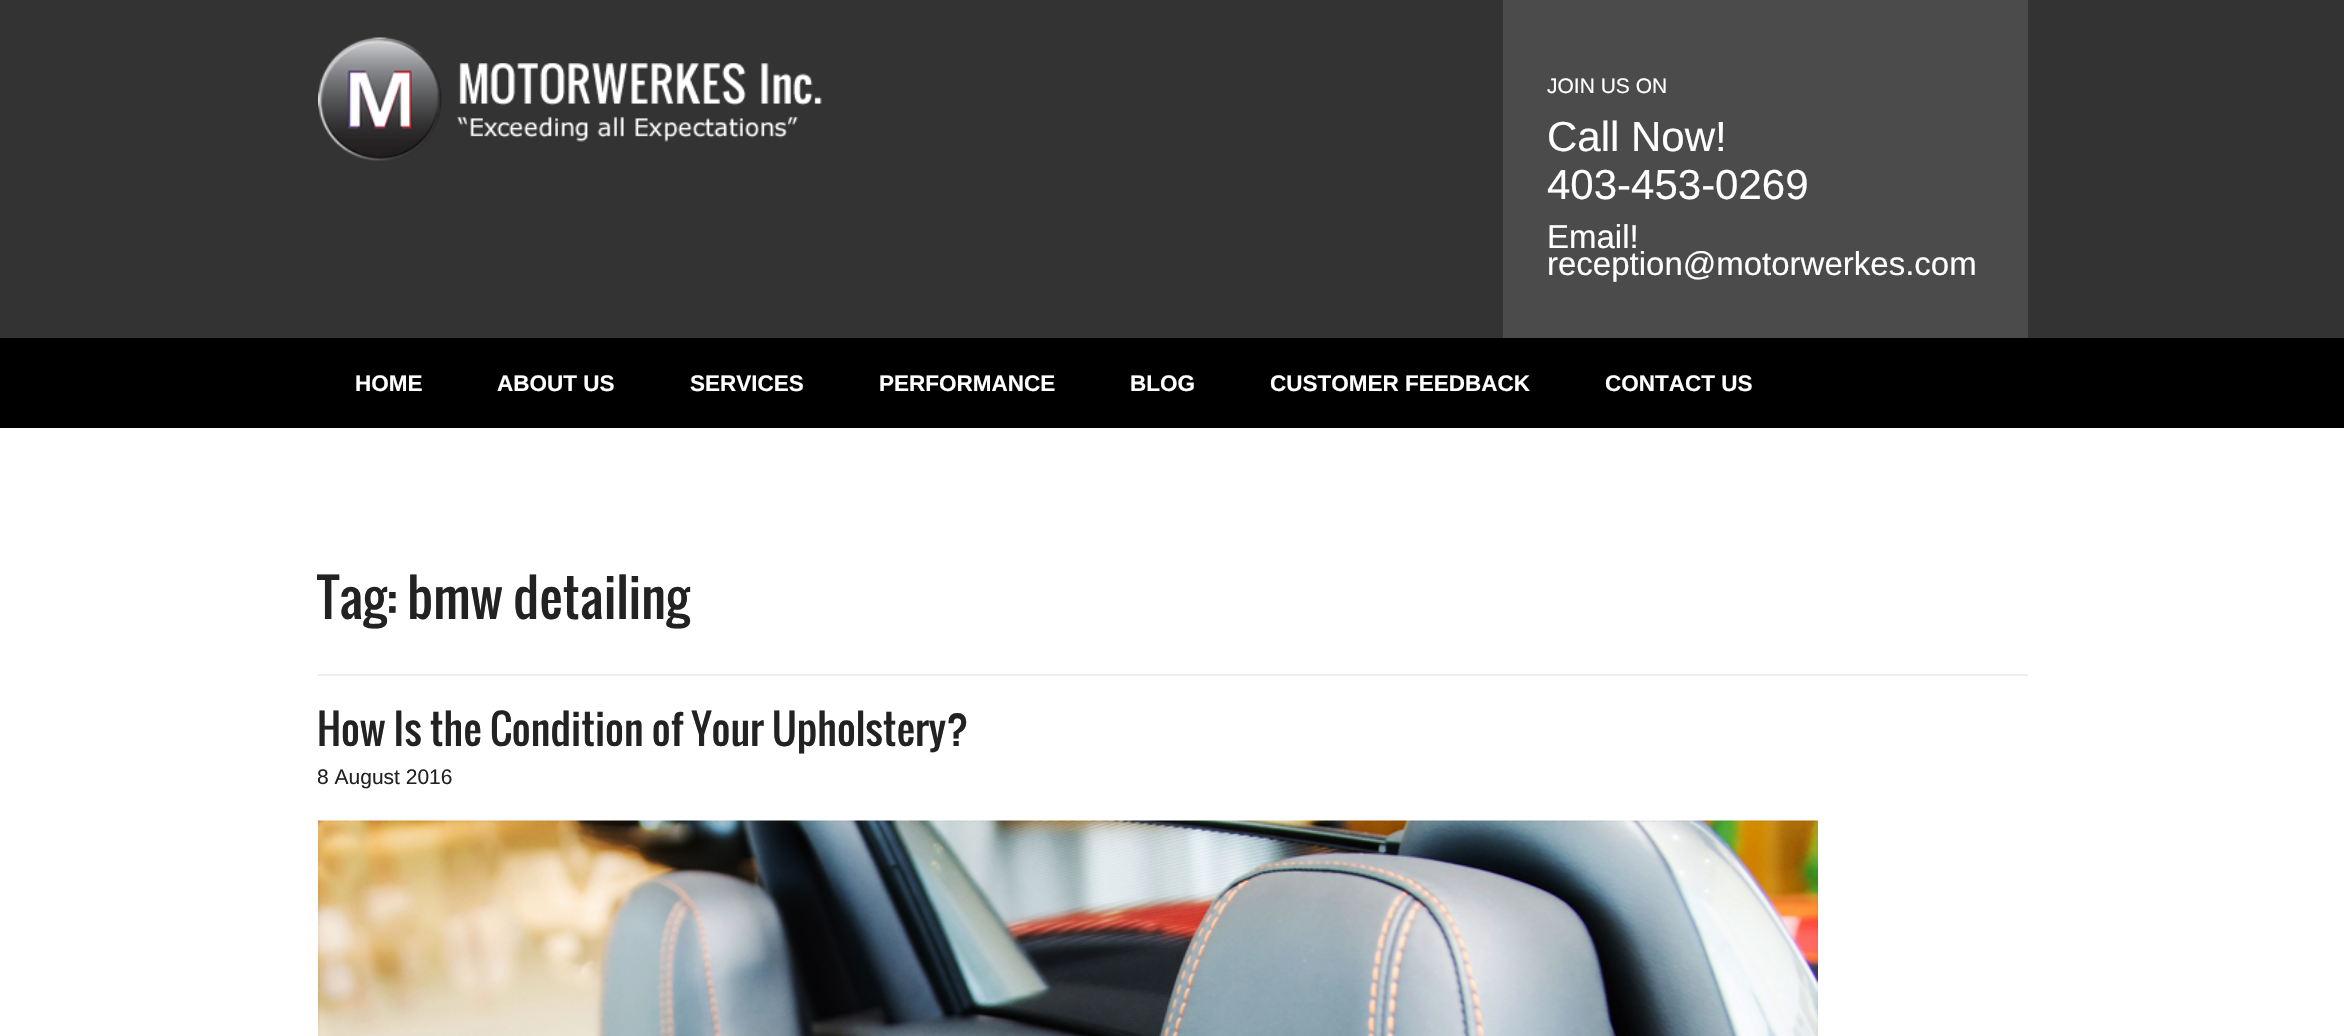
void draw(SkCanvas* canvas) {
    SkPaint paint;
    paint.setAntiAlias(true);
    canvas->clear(0xFFFFFFFF);
    paint.setColor(0xFF333333);
    canvas->drawRect(SkRect::MakeXYWH(0, 0, 2344, 338), paint);
    canvas->drawImageRect(SkImages::DeferredFromEncodedData(SkData::MakeFromFileName("img1.png")), SkRect::MakeXYWH(318, 37, 504, 124), SkSamplingOptions());
    paint.setColor(0xFF4B4B4C);
    canvas->drawRect(SkRect::MakeXYWH(1503, 0, 525, 338), paint);
    SkFont font1(fontMgr->matchFamilyStyle("Liberation Sans", SkFontStyle::Normal()), 21);
    font1.setSubpixel(true);
    paint.setColor(0xFFFFFFFF);
    canvas->drawString("JOIN US ON", 1547, 93, font1, paint);
    SkFont font2(fontMgr->matchFamilyStyle("Liberation Sans", SkFontStyle::Normal()), 42);
    font2.setSubpixel(true);
    canvas->drawString("Call Now!", 1547, 151, font2, paint);
    canvas->drawString("403-453-0269", 1547, 199, font2, paint);
    SkFont font3(fontMgr->matchFamilyStyle("Liberation Sans", SkFontStyle::Normal()), 33);
    font3.setSubpixel(true);
    canvas->drawString("Email!", 1547, 248, font3, paint);
    canvas->drawString("reception@motorwerkes.com", 1547, 275, font3, paint);
    paint.setColor(0xFF000000);
    canvas->drawRect(SkRect::MakeXYWH(0, 338, 2344, 90), paint);
    SkFont font4(fontMgr->matchFamilyStyle("Liberation Sans", SkFontStyle::Bold()), 22.5f);
    font4.setSubpixel(true);
    paint.setColor(0xFFFFFFFF);
    canvas->drawString("HOME", 355, 391, font4, paint);
    canvas->drawString("ABOUT US", 497, 391, font4, paint);
    canvas->drawString("SERVICES", 690, 391, font4, paint);
    canvas->drawString("PERFORMANCE", 879, 391, font4, paint);
    canvas->drawString("BLOG", 1130, 391, font4, paint);
    canvas->drawString("CUSTOMER FEEDBACK", 1270, 391, font4, paint);
    canvas->drawString("CONTACT US", 1605, 391, font4, paint);
    paint.setColor(0xFFEEEEEE);
    canvas->drawRect(SkRect::MakeXYWH(318, 674, 1710, 2), paint);
    SkFont font5(fontMgr->matchFamilyStyle("Oswald", SkFontStyle::Normal()), 51);
    font5.setSubpixel(true);
    paint.setColor(0xFF222222);
    canvas->drawString("Tag: bmw detailing", 317, 619, font5, paint);
    SkFont font6(fontMgr->matchFamilyStyle("Oswald", SkFontStyle::Normal()), 40.5f);
    font6.setSubpixel(true);
    canvas->drawString("How Is the Condition of Your Upholstery?", 317, 746, font6, paint);
    canvas->drawString("8 August 2016", 317, 784, font1, paint);
    canvas->drawImageRect(SkImages::DeferredFromEncodedData(SkData::MakeFromFileName("img2.png")), SkRect::MakeXYWH(318, 820, 1500, 216), SkSamplingOptions());
}
